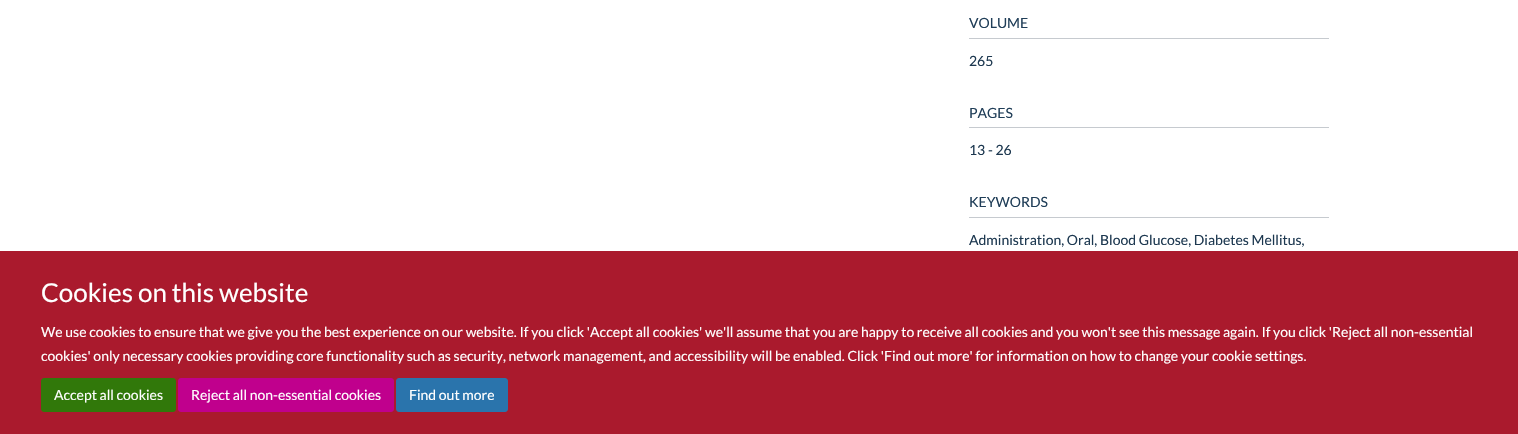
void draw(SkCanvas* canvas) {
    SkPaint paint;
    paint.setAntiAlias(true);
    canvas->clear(0xFFFFFFFF);
    paint.setColor(0xFFC6CACF);
    canvas->drawRect(SkRect::MakeXYWH(969, 38, 360, 1), paint);
    SkFont font1(fontMgr->matchFamilyStyle("Lato", SkFontStyle::Normal()), 14);
    font1.setSubpixel(true);
    paint.setColor(0xFF203E58);
    canvas->drawString("VOLUME", 969, 28, font1, paint);
    paint.setColor(0xFF1D3850);
    canvas->drawString("265", 969, 66, font1, paint);
    paint.setColor(0xFFC6CACF);
    canvas->drawRect(SkRect::MakeXYWH(969, 127, 360, 1), paint);
    paint.setColor(0xFF203E58);
    canvas->drawString("PAGES", 969, 118, font1, paint);
    paint.setColor(0xFF1D3850);
    canvas->drawString("13 - 26", 969, 155, font1, paint);
    paint.setColor(0xFFC6CACF);
    canvas->drawRect(SkRect::MakeXYWH(969, 217, 360, 1), paint);
    paint.setColor(0xFF203E58);
    canvas->drawString("KEYWORDS", 969, 207, font1, paint);
    paint.setColor(0xFF1D3850);
    canvas->drawString("Administration, Oral, Blood Glucose, Diabetes Mellitus,", 969, 245, font1, paint);
    paint.setColor(0xFFAA1A2D);
    canvas->drawRect(SkRect::MakeXYWH(0, 251, 1518, 183), paint);
    SkFont font2(fontMgr->matchFamilyStyle("Lato", SkFontStyle::Normal()), 26);
    font2.setSubpixel(true);
    paint.setColor(0xFFFFFFFF);
    canvas->drawString("Cookies on this website", 41, 302, font2, paint);
    canvas->drawString("We use cookies to ensure that we give you the best experience on our website. If you click 'Accept all cookies' we'll assume that you are happy to receive all cookies and you won't see this message again. If you click 'Reject all non-essential", 41, 337, font1, paint);
    canvas->drawString("cookies' only necessary cookies providing core functionality such as security, network management, and accessibility will be enabled. Click 'Find out more' for information on how to change your cookie settings.", 41, 361, font1, paint);
    paint.setColor(0xFF31780A);
    canvas->drawRoundRect(SkRect::MakeXYWH(41.5f, 378.5f, 134, 33), 2.5f, 2.5f, paint);
    paint.setStyle(SkPaint::kStroke_Style);
    paint.setStrokeWidth(1);
    canvas->drawRoundRect(SkRect::MakeXYWH(41.5f, 378.5f, 134, 33), 2.5f, 2.5f, paint);
    paint.setStyle(SkPaint::kFill_Style);
    paint.setColor(0xFFFFFFFF);
    canvas->drawString("Accept all cookies", 54, 400, font1, paint);
    paint.setColor(0xFFC0008D);
    canvas->drawRoundRect(SkRect::MakeXYWH(178.5f, 378.5f, 215, 33), 2.5f, 2.5f, paint);
    paint.setStyle(SkPaint::kStroke_Style);
    canvas->drawRoundRect(SkRect::MakeXYWH(178.5f, 378.5f, 215, 33), 2.5f, 2.5f, paint);
    paint.setStyle(SkPaint::kFill_Style);
    paint.setColor(0xFFFFFFFF);
    canvas->drawString("Reject all non-essential cookies", 191, 400, font1, paint);
    paint.setColor(0xFF2A74AC);
    canvas->drawRoundRect(SkRect::MakeXYWH(396.5f, 378.5f, 111, 33), 2.5f, 2.5f, paint);
    paint.setStyle(SkPaint::kStroke_Style);
    canvas->drawRoundRect(SkRect::MakeXYWH(396.5f, 378.5f, 111, 33), 2.5f, 2.5f, paint);
    paint.setStyle(SkPaint::kFill_Style);
    paint.setColor(0xFFFFFFFF);
    canvas->drawString("Find out more", 409, 400, font1, paint);
}
